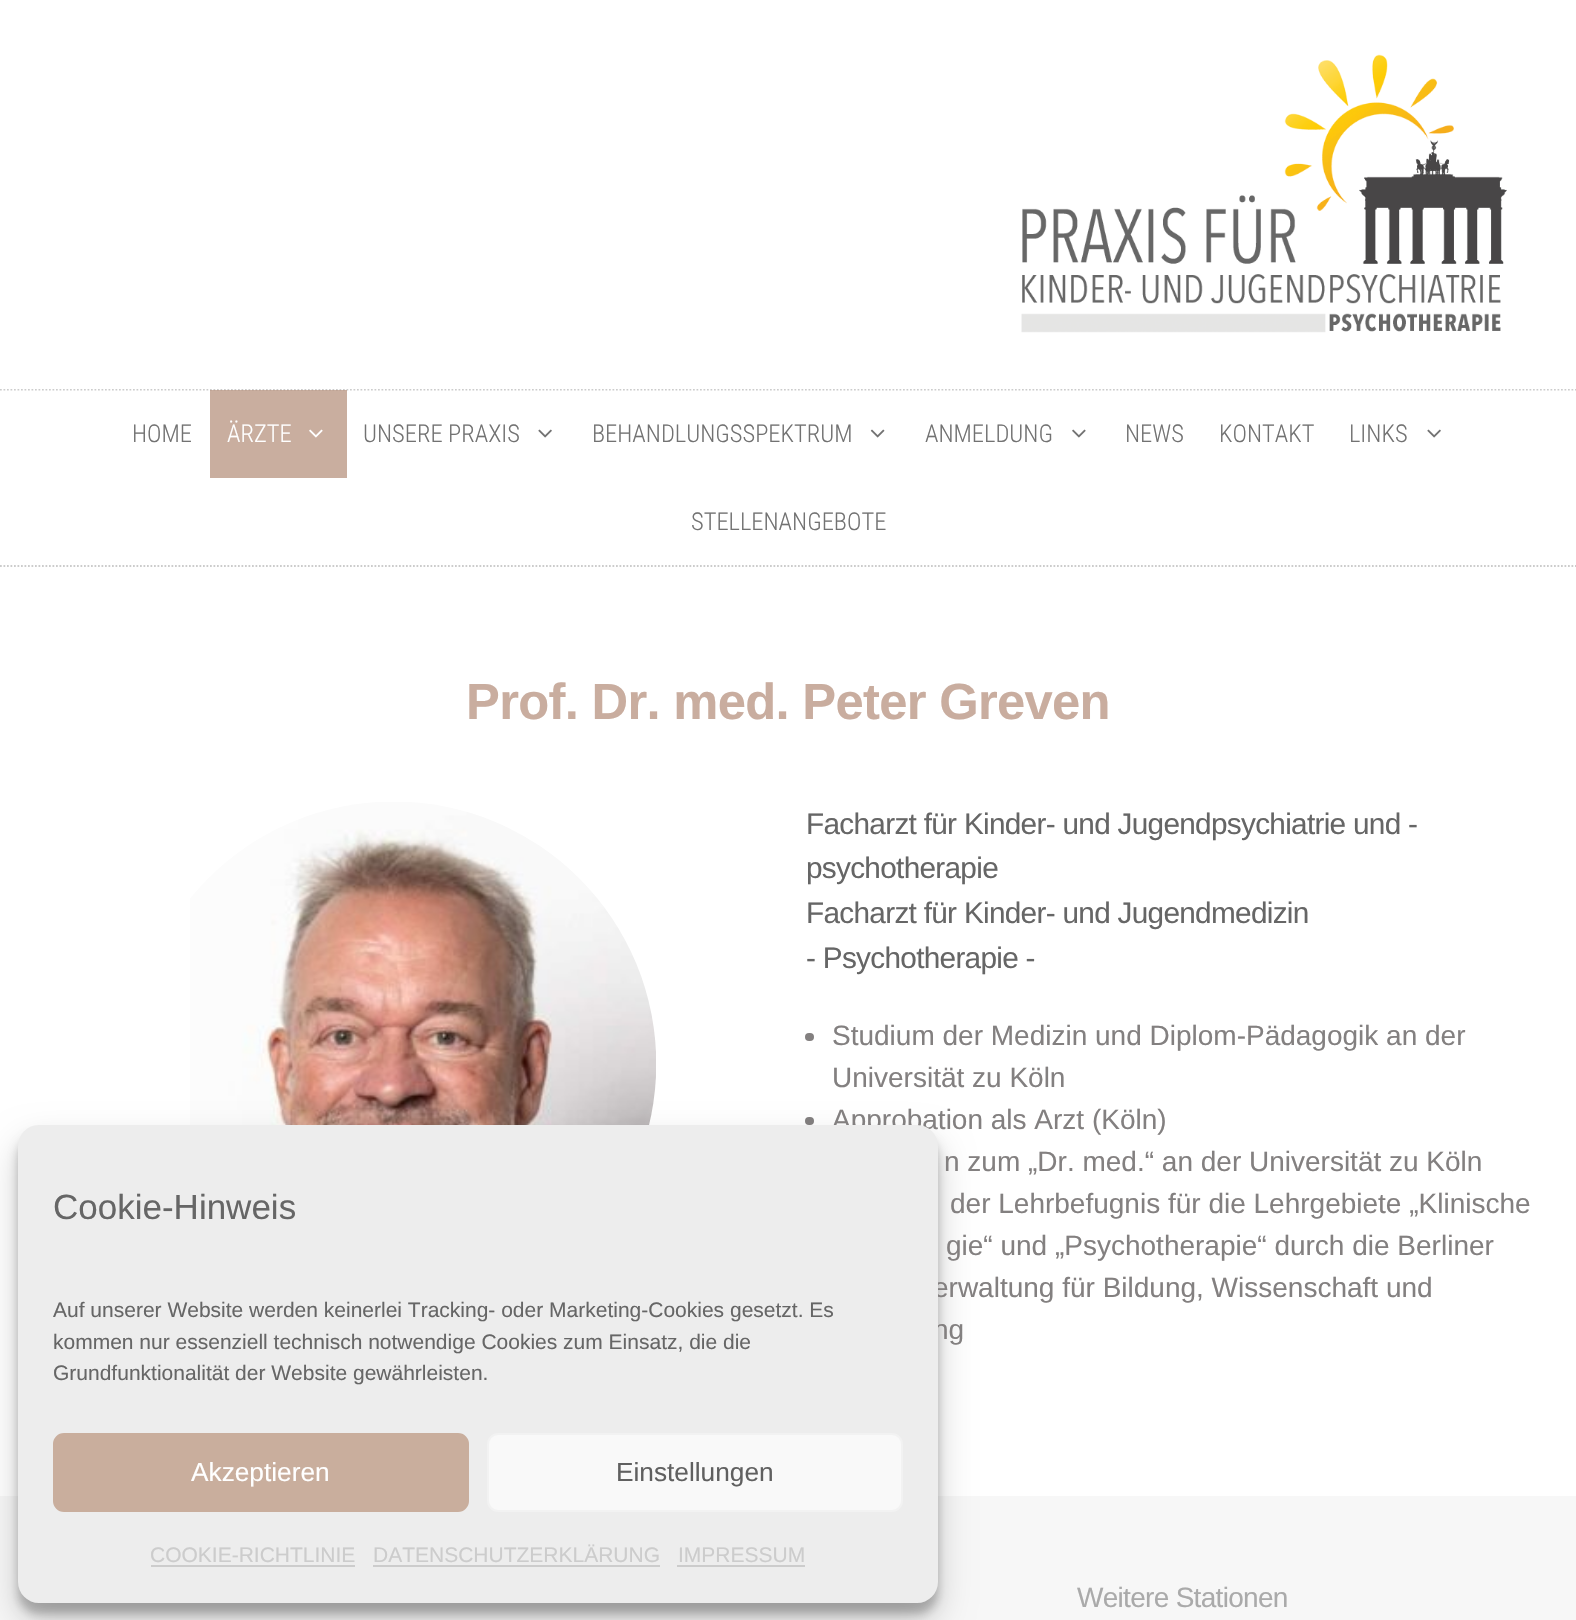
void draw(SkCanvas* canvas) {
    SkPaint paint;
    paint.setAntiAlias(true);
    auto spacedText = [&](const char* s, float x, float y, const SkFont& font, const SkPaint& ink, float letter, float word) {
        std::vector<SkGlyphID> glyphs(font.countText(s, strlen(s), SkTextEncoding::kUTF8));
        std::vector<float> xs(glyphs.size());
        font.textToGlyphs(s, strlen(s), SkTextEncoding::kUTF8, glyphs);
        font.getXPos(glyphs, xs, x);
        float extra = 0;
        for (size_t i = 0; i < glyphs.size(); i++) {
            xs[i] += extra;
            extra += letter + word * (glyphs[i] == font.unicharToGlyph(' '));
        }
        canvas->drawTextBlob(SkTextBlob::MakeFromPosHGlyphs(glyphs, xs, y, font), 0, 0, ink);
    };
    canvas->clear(0xFFFFFFFF);
    paint.setStyle(SkPaint::kStroke_Style);
    paint.setStrokeWidth(1.8f);
    paint.setColor(0xFFCCCCCC);
    paint.setPathEffect(SkDashPathEffect::Make({{1.75f, 1.75f}}, 0));
    canvas->drawPath(SkPathBuilder().moveTo(0, 389.5f).lineTo(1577, 389.5f).detach(), paint);
    paint.setPathEffect(nullptr);
    paint.setStyle(SkPaint::kFill_Style);
    paint.setColor(0xFFFFFFFF);
    canvas->drawRect(SkRect::MakeXYWH(0, 388, 1576, 1), paint);
    canvas->drawImageRect(SkImages::DeferredFromEncodedData(SkData::MakeFromFileName("img1.png")), SkRect::MakeXYWH(1021, 54, 486, 279), SkSamplingOptions());
    paint.setStyle(SkPaint::kStroke_Style);
    paint.setColor(0xFFCCCCCC);
    paint.setPathEffect(SkDashPathEffect::Make({{1.75f, 1.75f}}, 0));
    canvas->drawPath(SkPathBuilder().moveTo(0, 566).lineTo(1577, 566).detach(), paint);
    paint.setPathEffect(nullptr);
    SkFont font1(fontMgr->matchFamilyStyle("Roboto Condensed", SkFontStyle(300, SkFontStyle::kNormal_Width, SkFontStyle::kUpright_Slant)), 24.5f);
    font1.setSubpixel(true);
    paint.setStyle(SkPaint::kFill_Style);
    paint.setColor(0xFF727272);
    canvas->drawString("HOME", 132, 442, font1, paint);
    paint.setColor(0x91A07056);
    canvas->drawRect(SkRect::MakeXYWH(210, 390, 137, 88), paint);
    paint.setColor(0xFFFFFFFF);
    canvas->drawString("ÄRZTE", 227, 442, font1, paint);
    canvas->drawImageRect(SkImages::DeferredFromEncodedData(SkData::MakeFromFileName("img2.png")), SkRect::MakeXYWH(309, 429, 14, 9), SkSamplingOptions());
    paint.setColor(0xFF727272);
    canvas->drawString("UNSERE PRAXIS", 363, 442, font1, paint);
    canvas->drawImageRect(SkImages::DeferredFromEncodedData(SkData::MakeFromFileName("img3.png")), SkRect::MakeXYWH(538, 429, 14, 9), SkSamplingOptions());
    canvas->drawString("BEHANDLUNGSSPEKTRUM", 592, 442, font1, paint);
    canvas->drawImageRect(SkImages::DeferredFromEncodedData(SkData::MakeFromFileName("img4.png")), SkRect::MakeXYWH(870, 429, 15, 9), SkSamplingOptions());
    canvas->drawString("ANMELDUNG", 925, 442, font1, paint);
    canvas->drawImageRect(SkImages::DeferredFromEncodedData(SkData::MakeFromFileName("img5.png")), SkRect::MakeXYWH(1072, 429, 14, 9), SkSamplingOptions());
    canvas->drawString("NEWS", 1125, 442, font1, paint);
    canvas->drawString("KONTAKT", 1219, 442, font1, paint);
    canvas->drawString("LINKS", 1349, 442, font1, paint);
    canvas->drawImageRect(SkImages::DeferredFromEncodedData(SkData::MakeFromFileName("img3.png")), SkRect::MakeXYWH(1427, 429, 14, 9), SkSamplingOptions());
    canvas->drawString("STELLENANGEBOTE", 691, 530, font1, paint);
    canvas->drawImageRect(SkImages::DeferredFromEncodedData(SkData::MakeFromFileName("img6.png")), SkRect::MakeXYWH(190, 802, 466, 323), SkSamplingOptions());
    paint.setColor(0xFF838080);
    canvas->drawRoundRect(SkRect::MakeXYWH(805, 1117, 9, 8), 4, 4, paint);
    paint.setColor(0xFFF7F7F7);
    canvas->drawRect(SkRect::MakeXYWH(0, 1496, 1576, 124), paint);
    paint.setColor(0x3B000000);
    paint.setMaskFilter(SkMaskFilter::MakeBlur(kNormal_SkBlurStyle, 5));
    canvas->drawRoundRect(SkRect::MakeXYWH(18, 1136, 920, 478), 21, 21, paint);
    paint.setMaskFilter(nullptr);
    paint.setColor(0x30000000);
    paint.setMaskFilter(SkMaskFilter::MakeBlur(kNormal_SkBlurStyle, 17.5f));
    canvas->drawRoundRect(SkRect::MakeXYWH(18, 1143, 920, 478), 21, 21, paint);
    paint.setMaskFilter(nullptr);
    SkFont font2(fontMgr->matchFamilyStyle("Liberation Sans", SkFontStyle::Normal()), 28);
    font2.setSubpixel(true);
    paint.setColor(0xFF838080);
    canvas->drawString("Approbation als Arzt (Köln)", 832, 1129, font2, paint);
    canvas->drawString("erwaltung für Bildung, Wissenschaft und", 933, 1297, font2, paint);
    canvas->drawString("ng", 933, 1339, font2, paint);
    paint.setColor(0xFFEDEDED);
    canvas->drawRoundRect(SkRect::MakeXYWH(18, 1125, 920, 478), 21, 21, paint);
    SkFont font3(fontMgr->matchFamilyStyle("Liberation Sans", SkFontStyle::Normal()), 35);
    font3.setSubpixel(true);
    paint.setColor(0xFF666666);
    canvas->drawString("Cookie-Hinweis", 53, 1219, font3, paint);
    SkFont font4(fontMgr->matchFamilyStyle("Liberation Sans", SkFontStyle::Normal()), 21);
    font4.setSubpixel(true);
    canvas->drawString("Auf unserer Website werden keinerlei Tracking- oder Marketing-Cookies gesetzt. Es", 53, 1317, font4, paint);
    canvas->drawString("kommen nur essenziell technisch notwendige Cookies zum Einsatz, die die", 53, 1349, font4, paint);
    canvas->drawString("Grundfunktionalität der Website gewährleisten.", 53, 1380, font4, paint);
    paint.setColor(0xFFC9AE9D);
    canvas->drawRoundRect(SkRect::MakeXYWH(54, 1434, 414, 77), 10, 10, paint);
    paint.setStyle(SkPaint::kStroke_Style);
    paint.setStrokeWidth(2);
    canvas->drawRoundRect(SkRect::MakeXYWH(54, 1434, 414, 77), 10, 10, paint);
    SkFont font5(fontMgr->matchFamilyStyle("Liberation Sans", SkFontStyle::Normal()), 26.25f);
    font5.setSubpixel(true);
    paint.setStyle(SkPaint::kFill_Style);
    paint.setColor(0xFFFFFFFF);
    canvas->drawString("Akzeptieren", 191, 1481, font5, paint);
    paint.setColor(0xFFF9F9F9);
    canvas->drawRoundRect(SkRect::MakeXYWH(488, 1434, 414, 77), 10, 10, paint);
    paint.setStyle(SkPaint::kStroke_Style);
    paint.setColor(0xFFF2F2F2);
    canvas->drawRoundRect(SkRect::MakeXYWH(488, 1434, 414, 77), 10, 10, paint);
    paint.setStyle(SkPaint::kFill_Style);
    paint.setColor(0xFF606060);
    canvas->drawString("Einstellungen", 616, 1481, font5, paint);
    paint.setColor(0xFFCCCCCC);
    canvas->drawString("COOKIE-RICHTLINIE", 150, 1562, font4, paint);
    canvas->drawRect(SkRect::MakeXYWH(151, 1565, 204, 2), paint);
    canvas->drawString("DATENSCHUTZERKLÄRUNG", 373, 1562, font4, paint);
    canvas->drawRect(SkRect::MakeXYWH(373, 1565, 287, 2), paint);
    canvas->drawString("IMPRESSUM", 678, 1562, font4, paint);
    canvas->drawRect(SkRect::MakeXYWH(677, 1565, 128, 2), paint);
    SkFont font6(fontMgr->matchFamilyStyle("Liberation Sans", SkFontStyle::Bold()), 50.75f);
    font6.setSubpixel(true);
    paint.setColor(0xFFC9AD9F);
    spacedText("Prof. Dr. med. Peter Greven", 466, 719, font6, paint, -0.7f, 0);
    SkFont font7(fontMgr->matchFamilyStyle("Liberation Sans", SkFontStyle::Normal()), 29.75f);
    font7.setSubpixel(true);
    paint.setColor(0xFF666666);
    spacedText("Facharzt für Kinder- und Jugendpsychiatrie und -", 806, 834, font7, paint, -0.7f, 0);
    spacedText("psychotherapie", 806, 878, font7, paint, -0.7f, 0);
    spacedText("Facharzt für Kinder- und Jugendmedizin", 806, 923, font7, paint, -0.7f, 0);
    spacedText("- Psychotherapie -", 806, 968, font7, paint, -0.7f, 0);
    paint.setColor(0xFF838080);
    canvas->drawRoundRect(SkRect::MakeXYWH(805, 1033, 9, 8), 4, 4, paint);
    canvas->drawString("Studium der Medizin und Diplom-Pädagogik an der", 832, 1045, font2, paint);
    canvas->drawString("Universität zu Köln", 832, 1087, font2, paint);
    canvas->drawString("n zum „Dr. med.“ an der Universität zu Köln", 944, 1171, font2, paint);
    canvas->drawString("der Lehrbefugnis für die Lehrgebiete „Klinische", 950, 1213, font2, paint);
    canvas->drawString("gie“ und „Psychotherapie“ durch die Berliner", 946, 1255, font2, paint);
    paint.setColor(0xFFAAAAAA);
    spacedText("Weitere Stationen", 1077, 1607, font2, paint, -0.7f, 0);
}
